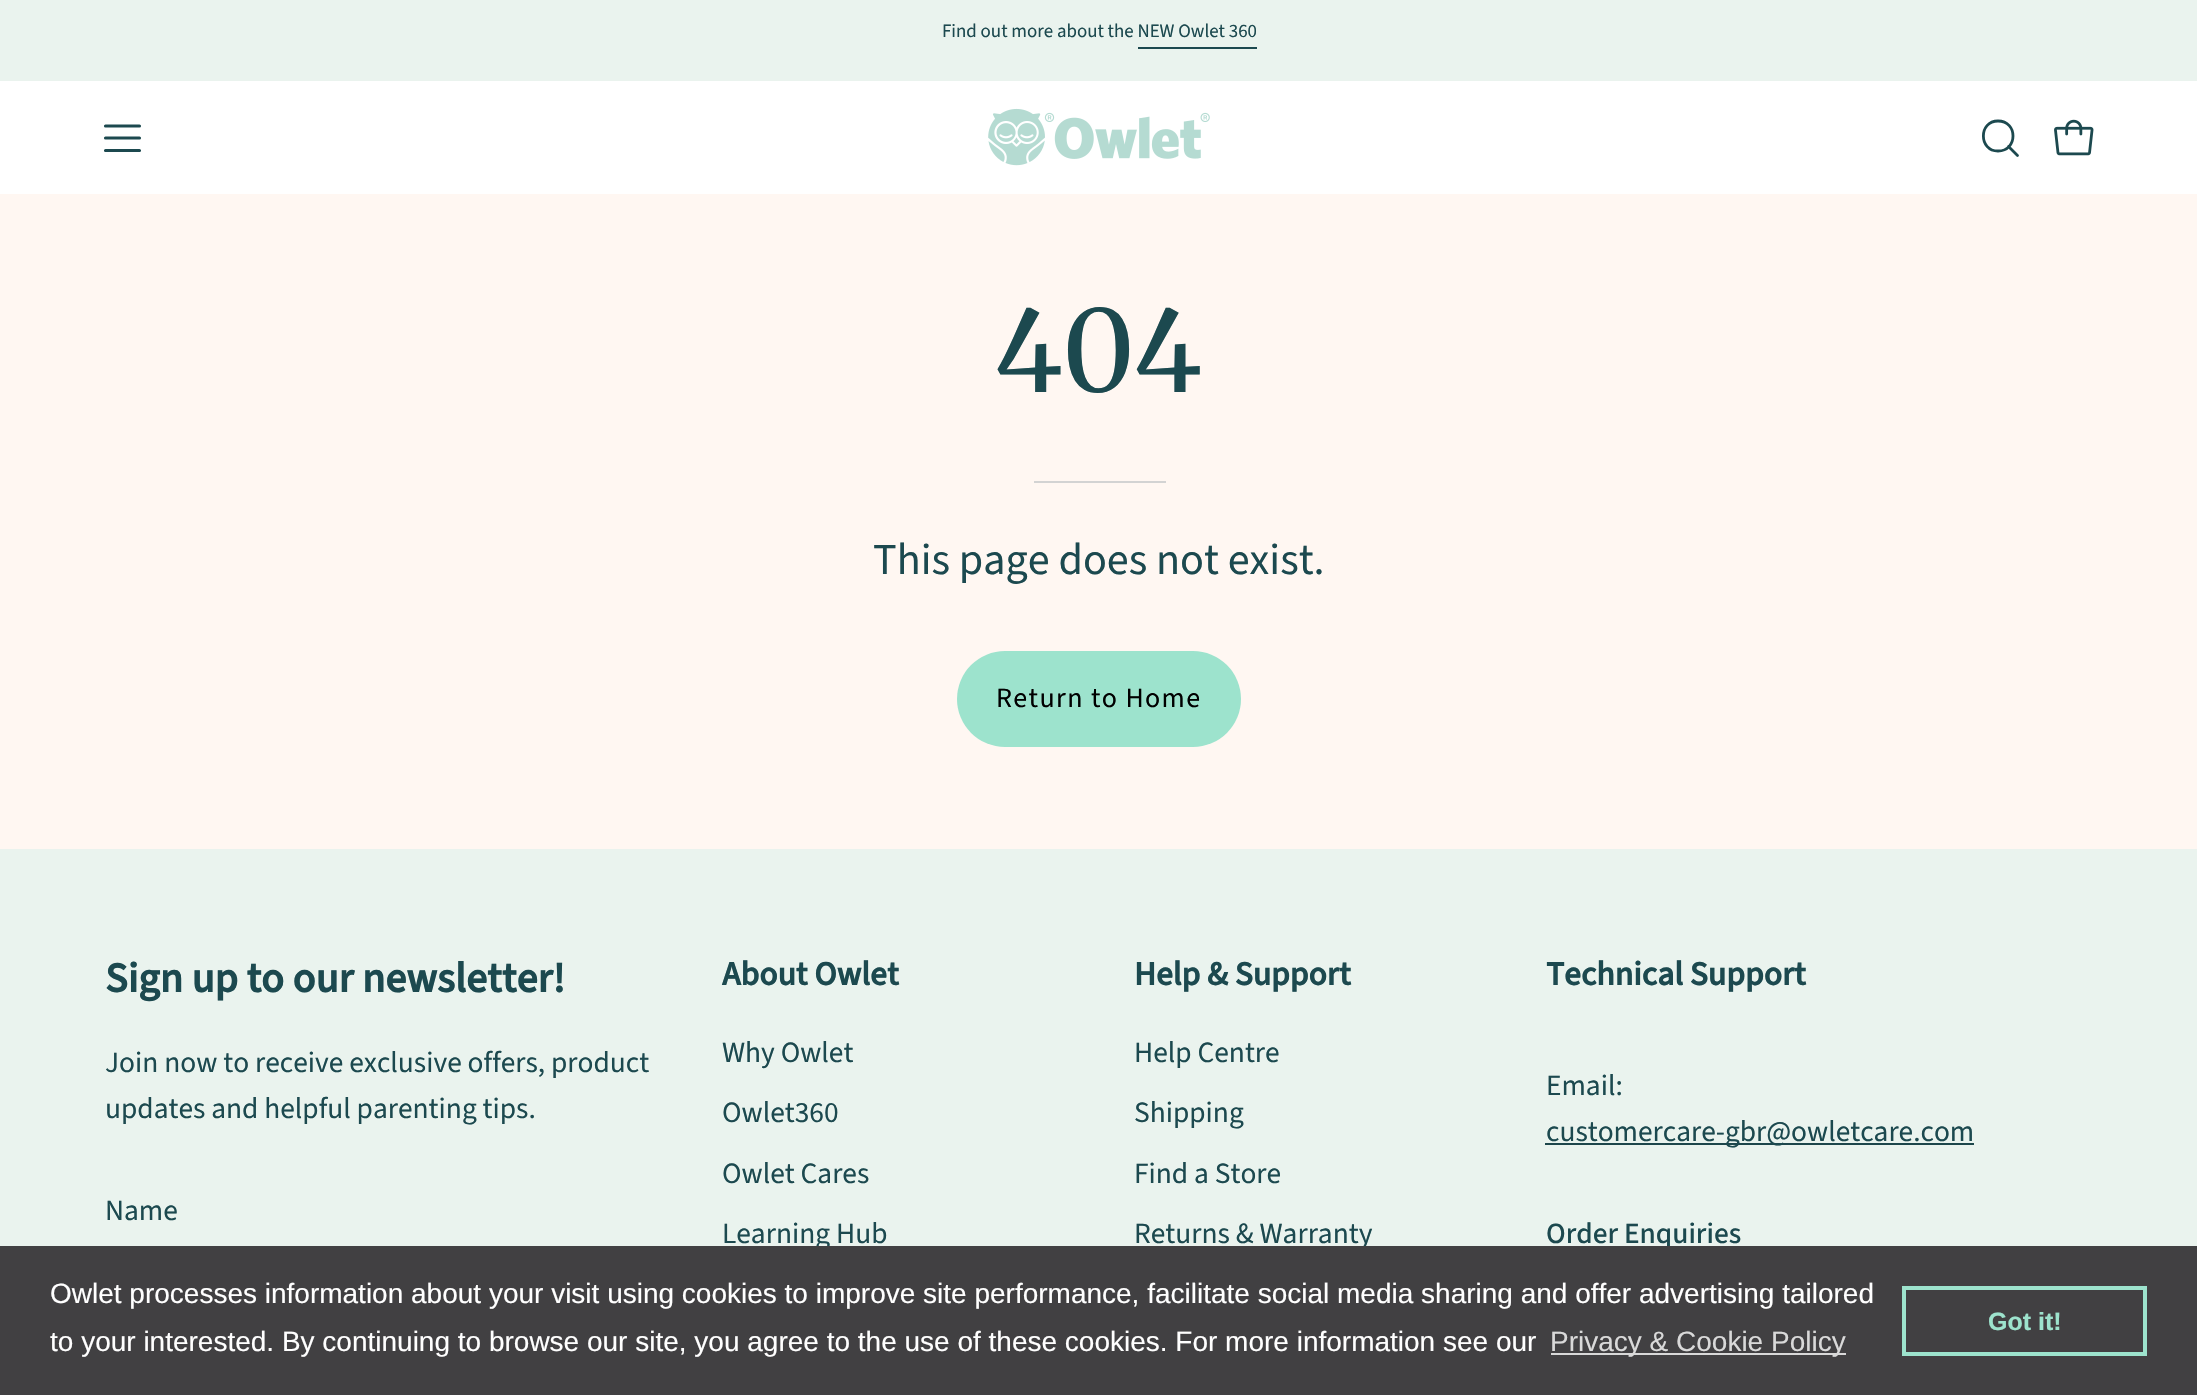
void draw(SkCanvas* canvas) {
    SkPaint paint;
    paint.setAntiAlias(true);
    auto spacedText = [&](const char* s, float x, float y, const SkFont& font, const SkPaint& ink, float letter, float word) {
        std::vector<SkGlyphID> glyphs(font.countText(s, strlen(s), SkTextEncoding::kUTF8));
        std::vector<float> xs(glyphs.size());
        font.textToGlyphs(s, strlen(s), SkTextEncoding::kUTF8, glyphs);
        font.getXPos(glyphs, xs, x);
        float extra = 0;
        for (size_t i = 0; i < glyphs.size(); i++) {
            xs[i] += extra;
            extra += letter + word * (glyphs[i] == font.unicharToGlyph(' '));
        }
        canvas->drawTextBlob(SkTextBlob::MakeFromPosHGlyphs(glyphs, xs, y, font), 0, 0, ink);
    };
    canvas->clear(0xFFFFF7F2);
    paint.setColor(0xFFEAF3EE);
    canvas->drawRect(SkRect::MakeXYWH(0, 0, 2197, 81), paint);
    SkFont font1(fontMgr->matchFamilyStyle("Source Sans Pro", SkFontStyle::Normal()), 18.9f);
    font1.setSubpixel(true);
    paint.setColor(0xFF1C494F);
    canvas->drawString("Find out more about the NEW Owlet 360", 942, 37, font1, paint);
    canvas->drawRect(SkRect::MakeXYWH(1138, 47, 119, 2), paint);
    paint.setColor(0xFFFFFFFF);
    canvas->drawRect(SkRect::MakeXYWH(0, 81, 2197, 113), paint);
    paint.setStyle(SkPaint::kStroke_Style);
    paint.setStrokeWidth(3.1f);
    paint.setStrokeCap(SkPaint::kRound_Cap);
    paint.setStrokeJoin(SkPaint::kRound_Join);
    paint.setColor(0xFF1C494F);
    canvas->drawPath(SkPathBuilder().moveTo(105.5f, 138).lineTo(139.5f, 138).moveTo(105.5f, 126).lineTo(139.5f, 126).moveTo(105.5f, 150.5f).lineTo(139.5f, 150.5f).detach(), paint);
    canvas->drawImageRect(SkImages::DeferredFromEncodedData(SkData::MakeFromFileName("img1.png")), SkRect::MakeXYWH(988, 108, 222, 58), SkSamplingOptions());
    paint.setStrokeWidth(2.8f);
    canvas->drawPath(SkPathBuilder().moveTo(1998, 151).cubicTo(2018, 151, 2018, 121, 1998, 121).cubicTo(1978.5f, 121, 1978.5f, 151, 1998, 151).close().moveTo(2008.5f, 146.5f).lineTo(2017.5f, 155.5f).detach(), paint);
    canvas->drawImageRect(SkImages::DeferredFromEncodedData(SkData::MakeFromFileName("img2.png")), SkRect::MakeXYWH(2054, 119, 40, 37), SkSamplingOptions());
    SkFont font2(fontMgr->matchFamilyStyle("Merriweather", SkFontStyle::Normal()), 113);
    font2.setSubpixel(true);
    paint.setStyle(SkPaint::kFill_Style);
    canvas->drawString("404", 995, 392, font2, paint);
    paint.setColor(0xFFD3D3D3);
    canvas->drawRect(SkRect::MakeXYWH(1034, 481, 132, 2), paint);
    SkFont font3(fontMgr->matchFamilyStyle("Source Sans Pro", SkFontStyle::Normal()), 44.1f);
    font3.setSubpixel(true);
    paint.setColor(0xFF1C494F);
    canvas->drawString("This page does not exist.", 873, 574, font3, paint);
    paint.setColor(0xFF9DE3CD);
    canvas->drawRoundRect(SkRect::MakeXYWH(957, 651, 284, 96), 48, 48, paint);
    SkFont font4(fontMgr->matchFamilyStyle("Source Sans Pro", SkFontStyle::Normal()), 28);
    font4.setSubpixel(true);
    paint.setColor(0xFF000000);
    spacedText("Return to Home", 996, 707, font4, paint, 1.4f, 0);
    paint.setColor(0xFFEAF3EE);
    canvas->drawRect(SkRect::MakeXYWH(0, 849, 2197, 397), paint);
    SkFont font5(fontMgr->matchFamilyStyle("Source Sans Pro", SkFontStyle::Bold()), 42);
    font5.setSubpixel(true);
    paint.setColor(0xFF1C494F);
    canvas->drawString("Sign up to our newsletter!", 105, 992, font5, paint);
    SkFont font6(fontMgr->matchFamilyStyle("Source Sans Pro", SkFontStyle::Normal()), 29.4f);
    font6.setSubpixel(true);
    canvas->drawString("Join now to receive exclusive offers, product", 105, 1072, font6, paint);
    canvas->drawString("updates and helpful parenting tips.", 105, 1118, font6, paint);
    canvas->drawString("Name", 105, 1220, font6, paint);
    SkFont font7(fontMgr->matchFamilyStyle("Source Sans Pro", SkFontStyle::Bold()), 33.5f);
    font7.setSubpixel(true);
    canvas->drawString("About Owlet", 722, 985, font7, paint);
    canvas->drawString("Why Owlet", 722, 1062, font6, paint);
    canvas->drawString("Owlet360", 722, 1122, font6, paint);
    canvas->drawString("Owlet Cares", 722, 1183, font6, paint);
    canvas->drawString("Learning Hub", 722, 1243, font6, paint);
    canvas->drawString("Help & Support", 1134, 985, font7, paint);
    canvas->drawString("Help Centre", 1134, 1062, font6, paint);
    canvas->drawString("Shipping", 1134, 1122, font6, paint);
    canvas->drawString("Find a Store", 1134, 1183, font6, paint);
    canvas->drawString("Returns & Warranty", 1134, 1243, font6, paint);
    canvas->drawString("Technical Support", 1546, 985, font7, paint);
    canvas->drawString("Email:", 1546, 1095, font6, paint);
    paint.setColor(0xFF1D464B);
    canvas->drawRect(SkRect::MakeXYWH(1545, 1143, 429, 2), paint);
    paint.setColor(0xFF1C494F);
    canvas->drawString("customercare-gbr@owletcare.com", 1546, 1141, font6, paint);
    SkFont font8(fontMgr->matchFamilyStyle("Source Sans Pro", SkFontStyle(500, SkFontStyle::kNormal_Width, SkFontStyle::kUpright_Slant)), 29.4f);
    font8.setSubpixel(true);
    canvas->drawString("Order Enquiries", 1546, 1243, font8, paint);
    paint.setColor(0xFF414042);
    canvas->drawRect(SkRect::MakeXYWH(0, 1246, 2197, 149), paint);
    SkFont font9(fontMgr->matchFamilyStyle("Liberation Sans", SkFontStyle::Normal()), 28);
    font9.setSubpixel(true);
    paint.setColor(0xFFFFFFFF);
    canvas->drawString("Owlet processes information about your visit using cookies to improve site performance, facilitate social media sharing and offer advertising tailored", 50, 1303, font9, paint);
    canvas->drawString("to your interested. By continuing to browse our site, you agree to the use of these cookies. For more information see our", 50, 1351, font9, paint);
    paint.setColor(0xFFD9D9D9);
    canvas->drawRect(SkRect::MakeXYWH(1551, 1353, 295, 2), paint);
    canvas->drawString("Privacy & Cookie Policy", 1550, 1351, font9, paint);
    paint.setStyle(SkPaint::kStroke_Style);
    paint.setStrokeWidth(4);
    paint.setStrokeCap(SkPaint::kButt_Cap);
    paint.setStrokeJoin(SkPaint::kMiter_Join);
    paint.setColor(0xFF9DE3CD);
    canvas->drawRect(SkRect::MakeXYWH(1904, 1288, 241, 66), paint);
    SkFont font10(fontMgr->matchFamilyStyle("Liberation Sans", SkFontStyle::Bold()), 25);
    font10.setSubpixel(true);
    paint.setStyle(SkPaint::kFill_Style);
    canvas->drawString("Got it!", 1988, 1330, font10, paint);
}
